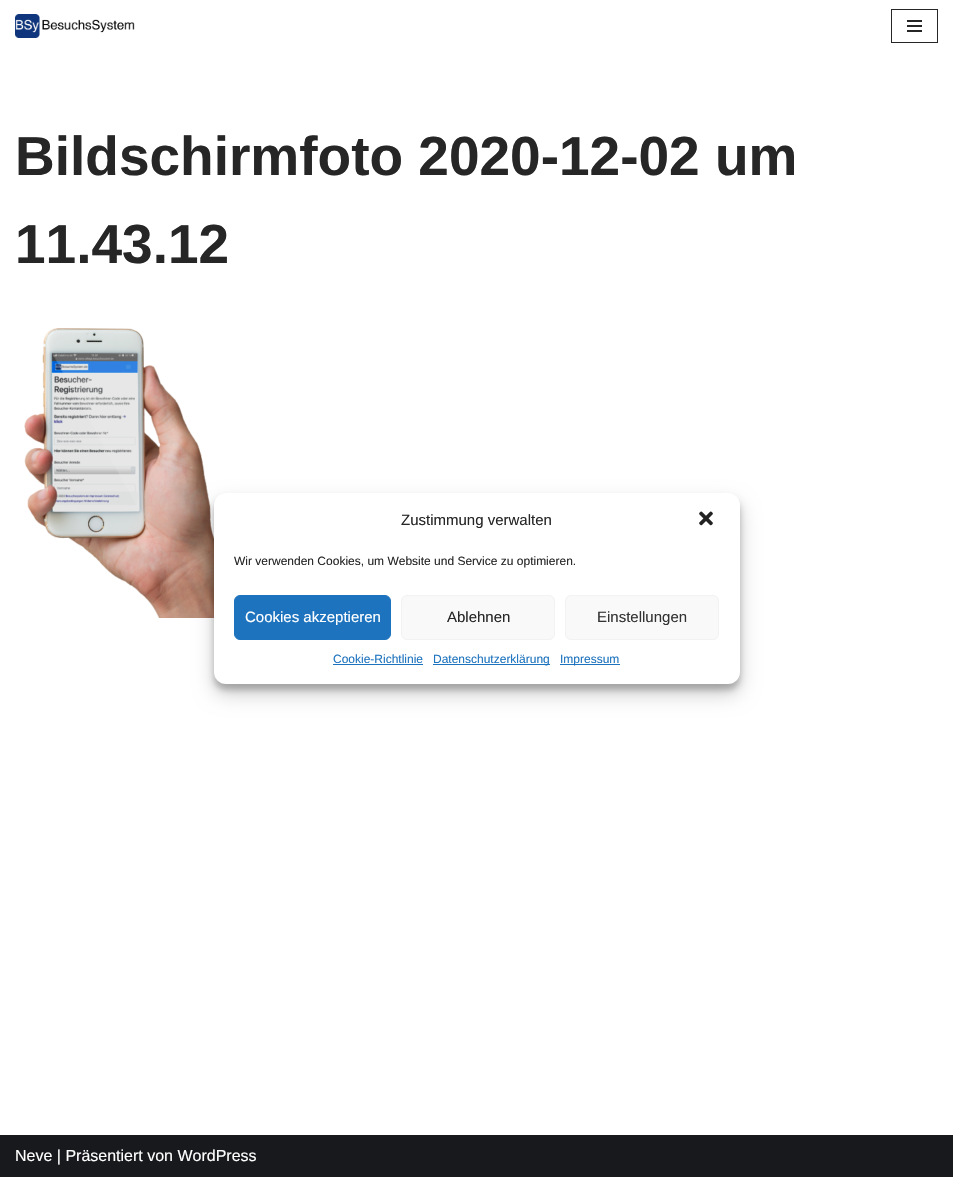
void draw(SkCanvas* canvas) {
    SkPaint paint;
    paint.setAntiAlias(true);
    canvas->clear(0xFFFFFFFF);
    canvas->drawImageRect(SkImages::DeferredFromEncodedData(SkData::MakeFromFileName("img1.png")), SkRect::MakeXYWH(15, 14, 120, 24), SkSamplingOptions());
    paint.setStyle(SkPaint::kStroke_Style);
    paint.setStrokeWidth(1);
    paint.setColor(0xFF272626);
    canvas->drawRect(SkRect::MakeXYWH(891.5f, 9.5f, 46, 33), paint);
    paint.setStyle(SkPaint::kFill_Style);
    canvas->drawRect(SkRect::MakeXYWH(907, 20, 15, 2), paint);
    canvas->drawRect(SkRect::MakeXYWH(907, 25, 15, 2), paint);
    canvas->drawRect(SkRect::MakeXYWH(907, 30, 15, 2), paint);
    SkFont font1(fontMgr->matchFamilyStyle("Liberation Sans", SkFontStyle::Bold()), 55);
    font1.setSubpixel(true);
    canvas->drawString("Bildschirmfoto 2020-12-02 um", 15, 175, font1, paint);
    canvas->drawString("11.43.12", 15, 263, font1, paint);
    canvas->drawImageRect(SkImages::DeferredFromEncodedData(SkData::MakeFromFileName("img2.png")), SkRect::MakeXYWH(24, 328, 224, 290), SkSamplingOptions());
    paint.setColor(0xFF18191D);
    canvas->drawRect(SkRect::MakeXYWH(0, 1135, 953, 42), paint);
    SkFont font2(fontMgr->matchFamilyStyle("Liberation Sans", SkFontStyle::Normal()), 16);
    font2.setSubpixel(true);
    paint.setColor(0xFFFFFFFF);
    canvas->drawString("Neve | Präsentiert von WordPress", 15, 1161, font2, paint);
    paint.setColor(0x3B000000);
    paint.setMaskFilter(SkMaskFilter::MakeBlur(kNormal_SkBlurStyle, 3));
    canvas->drawRoundRect(SkRect::MakeXYWH(214, 499, 526, 191), 12, 12, paint);
    paint.setMaskFilter(nullptr);
    paint.setColor(0x30000000);
    paint.setMaskFilter(SkMaskFilter::MakeBlur(kNormal_SkBlurStyle, 10));
    canvas->drawRoundRect(SkRect::MakeXYWH(214, 503, 526, 191), 12, 12, paint);
    paint.setMaskFilter(nullptr);
    paint.setColor(0xFFFFFFFF);
    canvas->drawRoundRect(SkRect::MakeXYWH(214, 493, 526, 191), 12, 12, paint);
    SkFont font3(fontMgr->matchFamilyStyle("Liberation Sans", SkFontStyle::Normal()), 15);
    font3.setSubpixel(true);
    paint.setColor(0xFF272626);
    canvas->drawString("Zustimmung verwalten", 401, 525, font3, paint);
    canvas->drawImageRect(SkImages::DeferredFromEncodedData(SkData::MakeFromFileName("img3.png")), SkRect::MakeXYWH(699, 511, 14, 15), SkSamplingOptions());
    SkFont font4(fontMgr->matchFamilyStyle("Liberation Sans", SkFontStyle::Normal()), 12);
    font4.setSubpixel(true);
    canvas->drawString("Wir verwenden Cookies, um Website und Service zu optimieren.", 234, 565, font4, paint);
    paint.setColor(0xFF1E73BE);
    canvas->drawRoundRect(SkRect::MakeXYWH(234.5f, 595.5f, 156, 44), 5.5f, 5.5f, paint);
    paint.setStyle(SkPaint::kStroke_Style);
    canvas->drawRoundRect(SkRect::MakeXYWH(234.5f, 595.5f, 156, 44), 5.5f, 5.5f, paint);
    paint.setStyle(SkPaint::kFill_Style);
    paint.setColor(0xFFFFFFFF);
    canvas->drawString("Cookies akzeptieren", 245, 622, font3, paint);
    paint.setColor(0xFFF9F9F9);
    canvas->drawRoundRect(SkRect::MakeXYWH(401.5f, 595.5f, 153, 44), 5.5f, 5.5f, paint);
    paint.setStyle(SkPaint::kStroke_Style);
    paint.setColor(0xFFF2F2F2);
    canvas->drawRoundRect(SkRect::MakeXYWH(401.5f, 595.5f, 153, 44), 5.5f, 5.5f, paint);
    paint.setStyle(SkPaint::kFill_Style);
    paint.setColor(0xFF272626);
    canvas->drawString("Ablehnen", 447, 622, font3, paint);
    paint.setColor(0xFFF9F9F9);
    canvas->drawRoundRect(SkRect::MakeXYWH(565.5f, 595.5f, 153, 44), 5.5f, 5.5f, paint);
    paint.setStyle(SkPaint::kStroke_Style);
    paint.setColor(0xFFF2F2F2);
    canvas->drawRoundRect(SkRect::MakeXYWH(565.5f, 595.5f, 153, 44), 5.5f, 5.5f, paint);
    paint.setStyle(SkPaint::kFill_Style);
    paint.setColor(0xFF333333);
    canvas->drawString("Einstellungen", 597, 622, font3, paint);
    paint.setColor(0xFF1E73BE);
    canvas->drawString("Cookie-Richtlinie", 333, 663, font4, paint);
    canvas->drawRect(SkRect::MakeXYWH(333, 664, 90, 1), paint);
    canvas->drawRect(SkRect::MakeXYWH(433, 664, 117, 1), paint);
    canvas->drawString("Datenschutzerklärung", 433, 663, font4, paint);
    canvas->drawRect(SkRect::MakeXYWH(560, 664, 60, 1), paint);
    canvas->drawString("Impressum", 560, 663, font4, paint);
}
